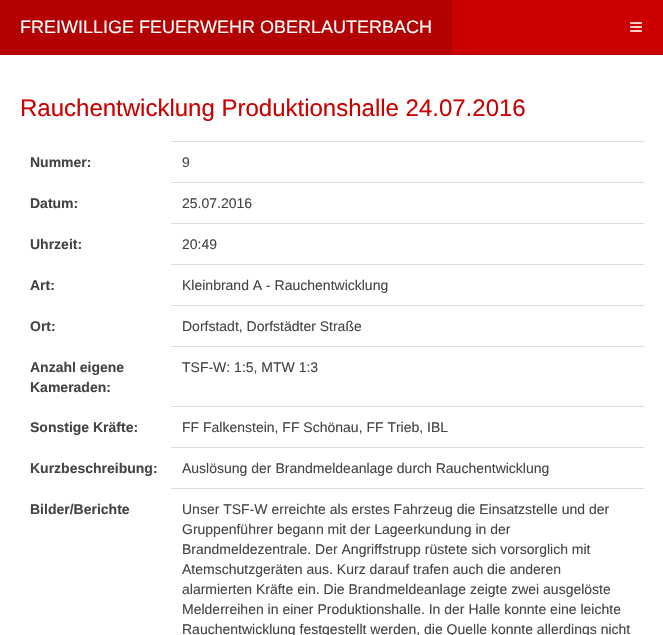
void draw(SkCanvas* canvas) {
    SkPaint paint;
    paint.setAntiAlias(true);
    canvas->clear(0xFFFFFFFF);
    paint.setColor(0xFFCC0000);
    canvas->drawRect(SkRect::MakeXYWH(452, 0, 211, 54), paint);
    paint.setColor(0xFFB30000);
    canvas->drawRect(SkRect::MakeXYWH(452, 54, 211, 1), paint);
    canvas->drawRect(SkRect::MakeXYWH(0, 0, 452, 55), paint);
    SkFont font1(fontMgr->matchFamilyStyle("Liberation Sans", SkFontStyle::Normal()), 18);
    font1.setSubpixel(true);
    paint.setColor(0xFFFFFFFF);
    canvas->drawString("FREIWILLIGE FEUERWEHR OBERLAUTERBACH", 20, 33, font1, paint);
    canvas->drawImageRect(SkImages::DeferredFromEncodedData(SkData::MakeFromFileName("img1.png")), SkRect::MakeXYWH(630, 22, 12, 10), SkSamplingOptions());
    SkFont font2(fontMgr->matchFamilyStyle("Liberation Sans", SkFontStyle::Normal()), 24);
    font2.setSubpixel(true);
    paint.setColor(0xFFCC0000);
    canvas->drawString("Rauchentwicklung Produktionshalle 24.07.2016", 20, 116, font2, paint);
    SkFont font3(fontMgr->matchFamilyStyle("Liberation Sans", SkFontStyle::Bold()), 14);
    font3.setSubpixel(true);
    paint.setColor(0xFF444444);
    canvas->drawString("Nummer:", 30, 167, font3, paint);
    paint.setColor(0xFFDDDDDD);
    canvas->drawRect(SkRect::MakeXYWH(171, 141, 473, 1), paint);
    SkFont font4(fontMgr->matchFamilyStyle("Liberation Sans", SkFontStyle::Normal()), 14);
    font4.setSubpixel(true);
    paint.setColor(0xFF444444);
    canvas->drawString("9", 182, 167, font4, paint);
    canvas->drawString("Datum:", 30, 208, font3, paint);
    paint.setColor(0xFFDDDDDD);
    canvas->drawRect(SkRect::MakeXYWH(171, 182, 473, 1), paint);
    paint.setColor(0xFF444444);
    canvas->drawString("25.07.2016", 182, 208, font4, paint);
    canvas->drawString("Uhrzeit:", 30, 249, font3, paint);
    paint.setColor(0xFFDDDDDD);
    canvas->drawRect(SkRect::MakeXYWH(171, 223, 473, 1), paint);
    paint.setColor(0xFF444444);
    canvas->drawString("20:49", 182, 249, font4, paint);
    canvas->drawString("Art:", 30, 290, font3, paint);
    paint.setColor(0xFFDDDDDD);
    canvas->drawRect(SkRect::MakeXYWH(171, 264, 473, 1), paint);
    paint.setColor(0xFF444444);
    canvas->drawString("Kleinbrand A - Rauchentwicklung", 182, 290, font4, paint);
    canvas->drawString("Ort:", 30, 331, font3, paint);
    paint.setColor(0xFFDDDDDD);
    canvas->drawRect(SkRect::MakeXYWH(171, 305, 473, 1), paint);
    paint.setColor(0xFF444444);
    canvas->drawString("Dorfstadt, Dorfstädter Straße", 182, 331, font4, paint);
    canvas->drawString("Anzahl eigene", 30, 372, font3, paint);
    canvas->drawString("Kameraden:", 30, 392, font3, paint);
    paint.setColor(0xFFDDDDDD);
    canvas->drawRect(SkRect::MakeXYWH(171, 346, 473, 1), paint);
    paint.setColor(0xFF444444);
    canvas->drawString("TSF-W: 1:5, MTW 1:3", 182, 372, font4, paint);
    canvas->drawString("Sonstige Kräfte:", 30, 432, font3, paint);
    paint.setColor(0xFFDDDDDD);
    canvas->drawRect(SkRect::MakeXYWH(171, 406, 473, 1), paint);
    paint.setColor(0xFF444444);
    canvas->drawString("FF Falkenstein, FF Schönau, FF Trieb, IBL", 182, 432, font4, paint);
    canvas->drawString("Kurzbeschreibung:", 30, 473, font3, paint);
    paint.setColor(0xFFDDDDDD);
    canvas->drawRect(SkRect::MakeXYWH(171, 447, 473, 1), paint);
    paint.setColor(0xFF444444);
    canvas->drawString("Auslösung der Brandmeldeanlage durch Rauchentwicklung", 182, 473, font4, paint);
    canvas->drawString("Bilder/Berichte", 30, 514, font3, paint);
    paint.setColor(0xFFDDDDDD);
    canvas->drawRect(SkRect::MakeXYWH(171, 488, 473, 1), paint);
    paint.setColor(0xFF444444);
    canvas->drawString("Unser TSF-W erreichte als erstes Fahrzeug die Einsatzstelle und der", 182, 514, font4, paint);
    canvas->drawString("Gruppenführer begann mit der Lageerkundung in der", 182, 534, font4, paint);
    canvas->drawString("Brandmeldezentrale. Der Angriffstrupp rüstete sich vorsorglich mit", 182, 554, font4, paint);
    canvas->drawString("Atemschutzgeräten aus. Kurz darauf trafen auch die anderen", 182, 574, font4, paint);
    canvas->drawString("alarmierten Kräfte ein. Die Brandmeldeanlage zeigte zwei ausgelöste", 182, 594, font4, paint);
    canvas->drawString("Melderreihen in einer Produktionshalle. In der Halle konnte eine leichte", 182, 614, font4, paint);
    canvas->drawString("Rauchentwicklung festgestellt werden, die Quelle konnte allerdings nicht", 182, 634, font4, paint);
}
